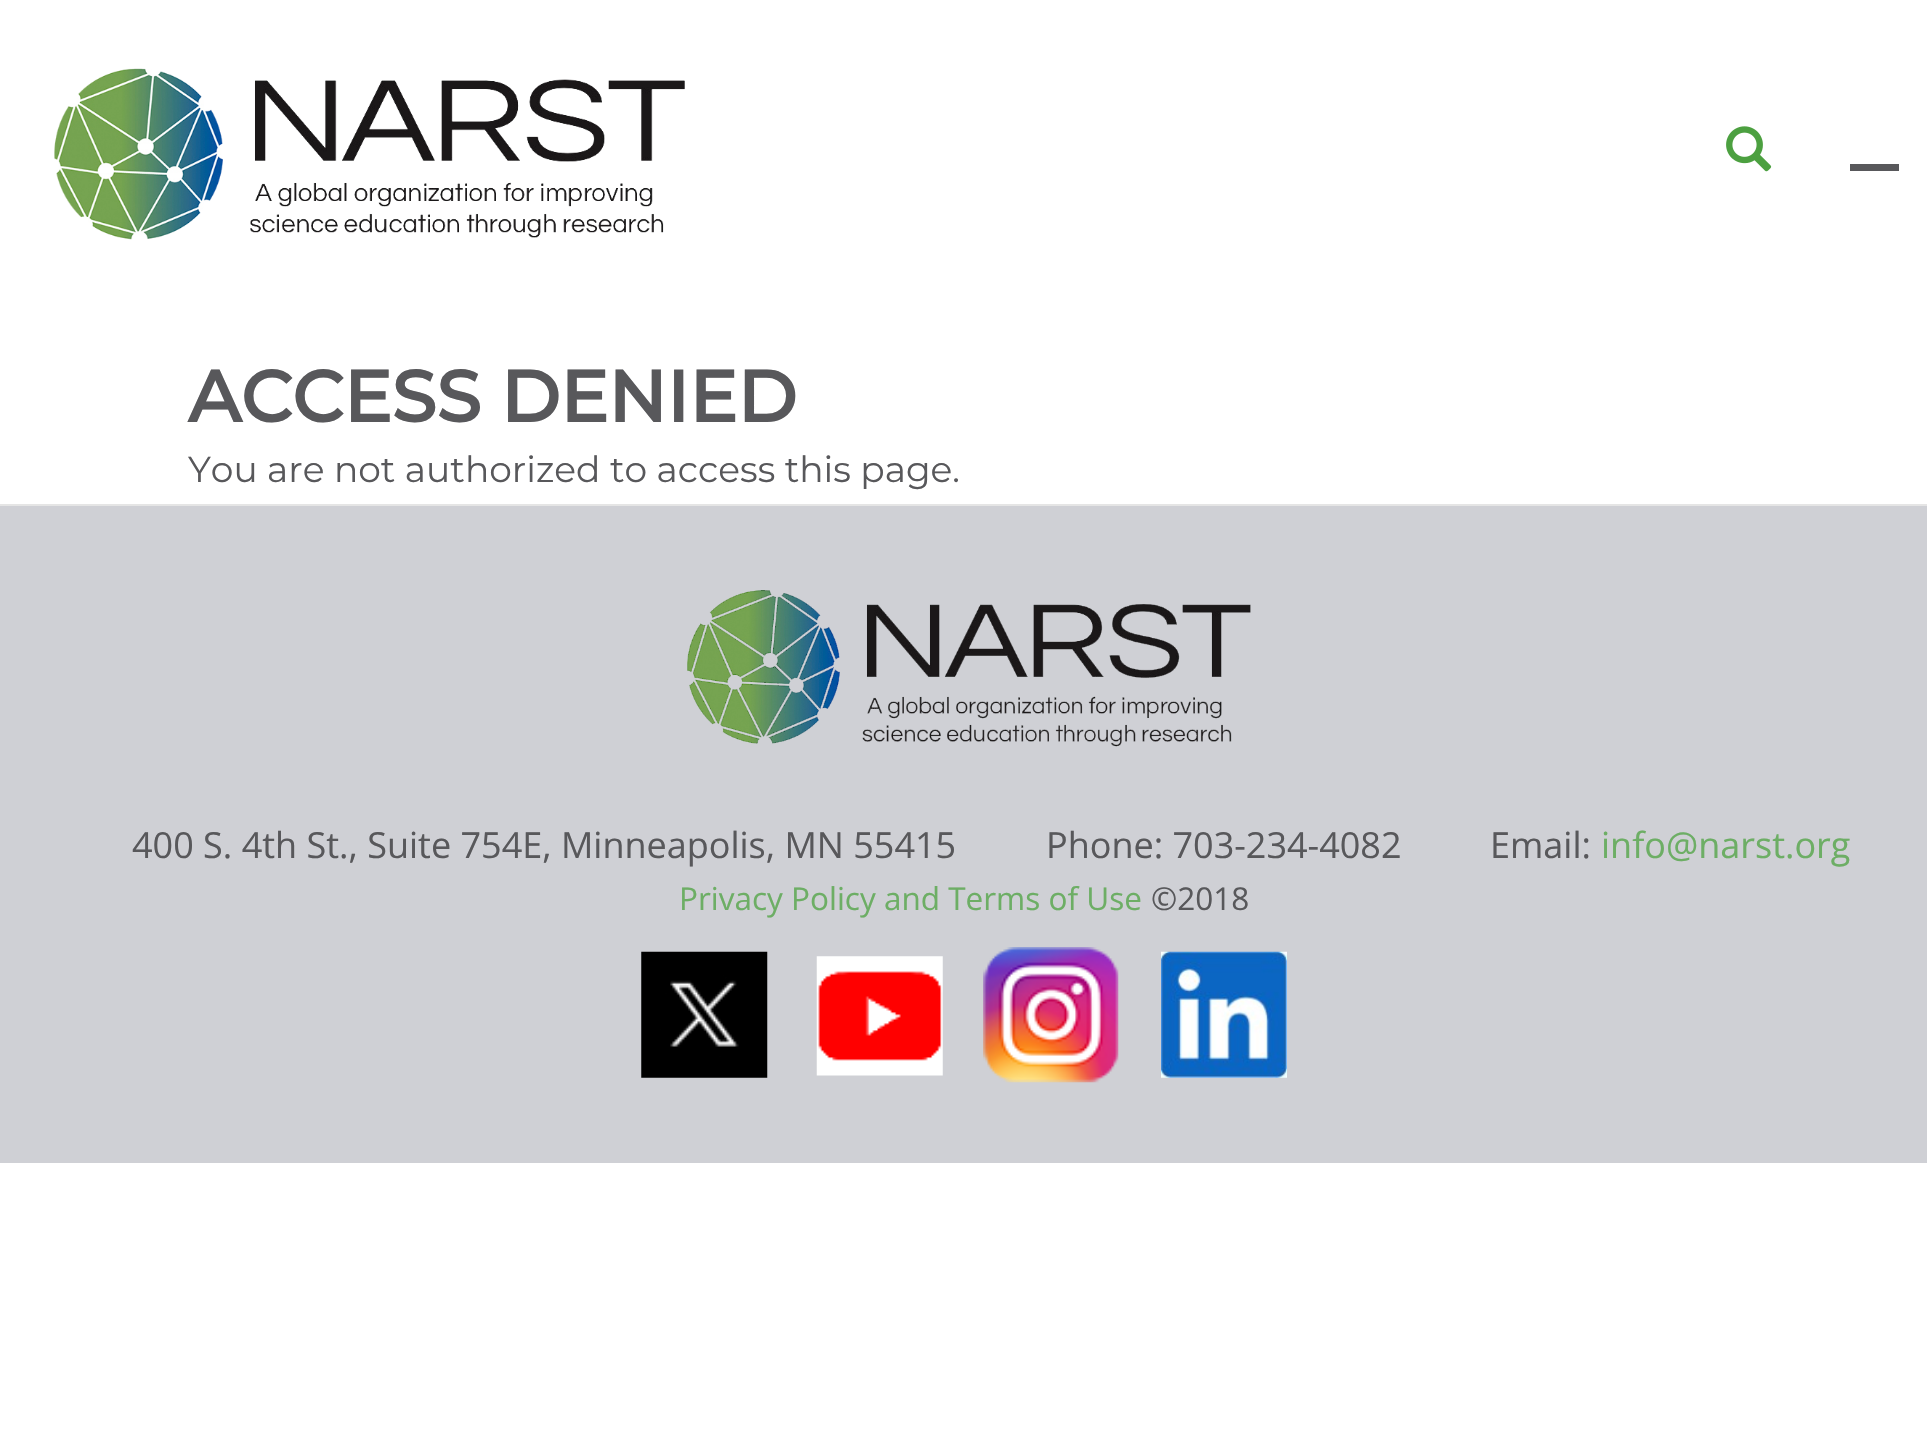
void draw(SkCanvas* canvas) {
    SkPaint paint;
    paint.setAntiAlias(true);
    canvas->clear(0xFFFFFFFF);
    canvas->drawImageRect(SkImages::DeferredFromEncodedData(SkData::MakeFromFileName("img1.png")), SkRect::MakeXYWH(54, 68, 631, 172), SkSamplingOptions());
    canvas->drawImageRect(SkImages::DeferredFromEncodedData(SkData::MakeFromFileName("img2.png")), SkRect::MakeXYWH(1726, 126, 46, 46), SkSamplingOptions());
    paint.setColor(0xFF58585B);
    canvas->drawRect(SkRect::MakeXYWH(1850, 164, 49, 7), paint);
    SkFont font1(fontMgr->matchFamilyStyle("Montserrat", SkFontStyle::Bold()), 72);
    font1.setSubpixel(true);
    canvas->drawString("ACCESS DENIED", 188, 422, font1, paint);
    SkFont font2(fontMgr->matchFamilyStyle("Montserrat", SkFontStyle::Normal()), 36);
    font2.setSubpixel(true);
    canvas->drawString("You are not authorized to access this page.", 188, 482, font2, paint);
    paint.setColor(0xFFCFD0D5);
    canvas->drawRect(SkRect::MakeXYWH(0, 506, 1927, 657), paint);
    paint.setColor(0xFFE5E5E5);
    canvas->drawRect(SkRect::MakeXYWH(0, 504, 1927, 2), paint);
    canvas->drawImageRect(SkImages::DeferredFromEncodedData(SkData::MakeFromFileName("img3.png")), SkRect::MakeXYWH(687, 590, 564, 157), SkSamplingOptions());
    SkFont font3(fontMgr->matchFamilyStyle("Open Sans", SkFontStyle::Normal()), 36);
    font3.setSubpixel(true);
    paint.setColor(0xFF58585B);
    canvas->drawString("400 S. 4th St., Suite 754E, Minneapolis, MN 55415", 132, 858, font3, paint);
    canvas->drawString("Phone: 703-234-4082", 1046, 858, font3, paint);
    canvas->drawString("Email:", 1490, 858, font3, paint);
    paint.setColor(0xFF6DAE65);
    canvas->drawString("info@narst.org", 1601, 858, font3, paint);
    SkFont font4(fontMgr->matchFamilyStyle("Open Sans", SkFontStyle::Normal()), 31.5f);
    font4.setSubpixel(true);
    canvas->drawString("Privacy Policy and Terms of Use", 679, 910, font4, paint);
    paint.setColor(0xFF58585B);
    canvas->drawString("©2018", 1151, 910, font4, paint);
    canvas->drawImageRect(SkImages::DeferredFromEncodedData(SkData::MakeFromFileName("img4.png")), SkRect::MakeXYWH(641, 951, 127, 127), SkSamplingOptions());
    canvas->drawImageRect(SkImages::DeferredFromEncodedData(SkData::MakeFromFileName("img5.png")), SkRect::MakeXYWH(816, 956, 127, 120), SkSamplingOptions());
    canvas->drawImageRect(SkImages::DeferredFromEncodedData(SkData::MakeFromFileName("img6.png")), SkRect::MakeXYWH(983, 947, 136, 136), SkSamplingOptions());
    canvas->drawImageRect(SkImages::DeferredFromEncodedData(SkData::MakeFromFileName("img7.png")), SkRect::MakeXYWH(1161, 951, 126, 127), SkSamplingOptions());
}
